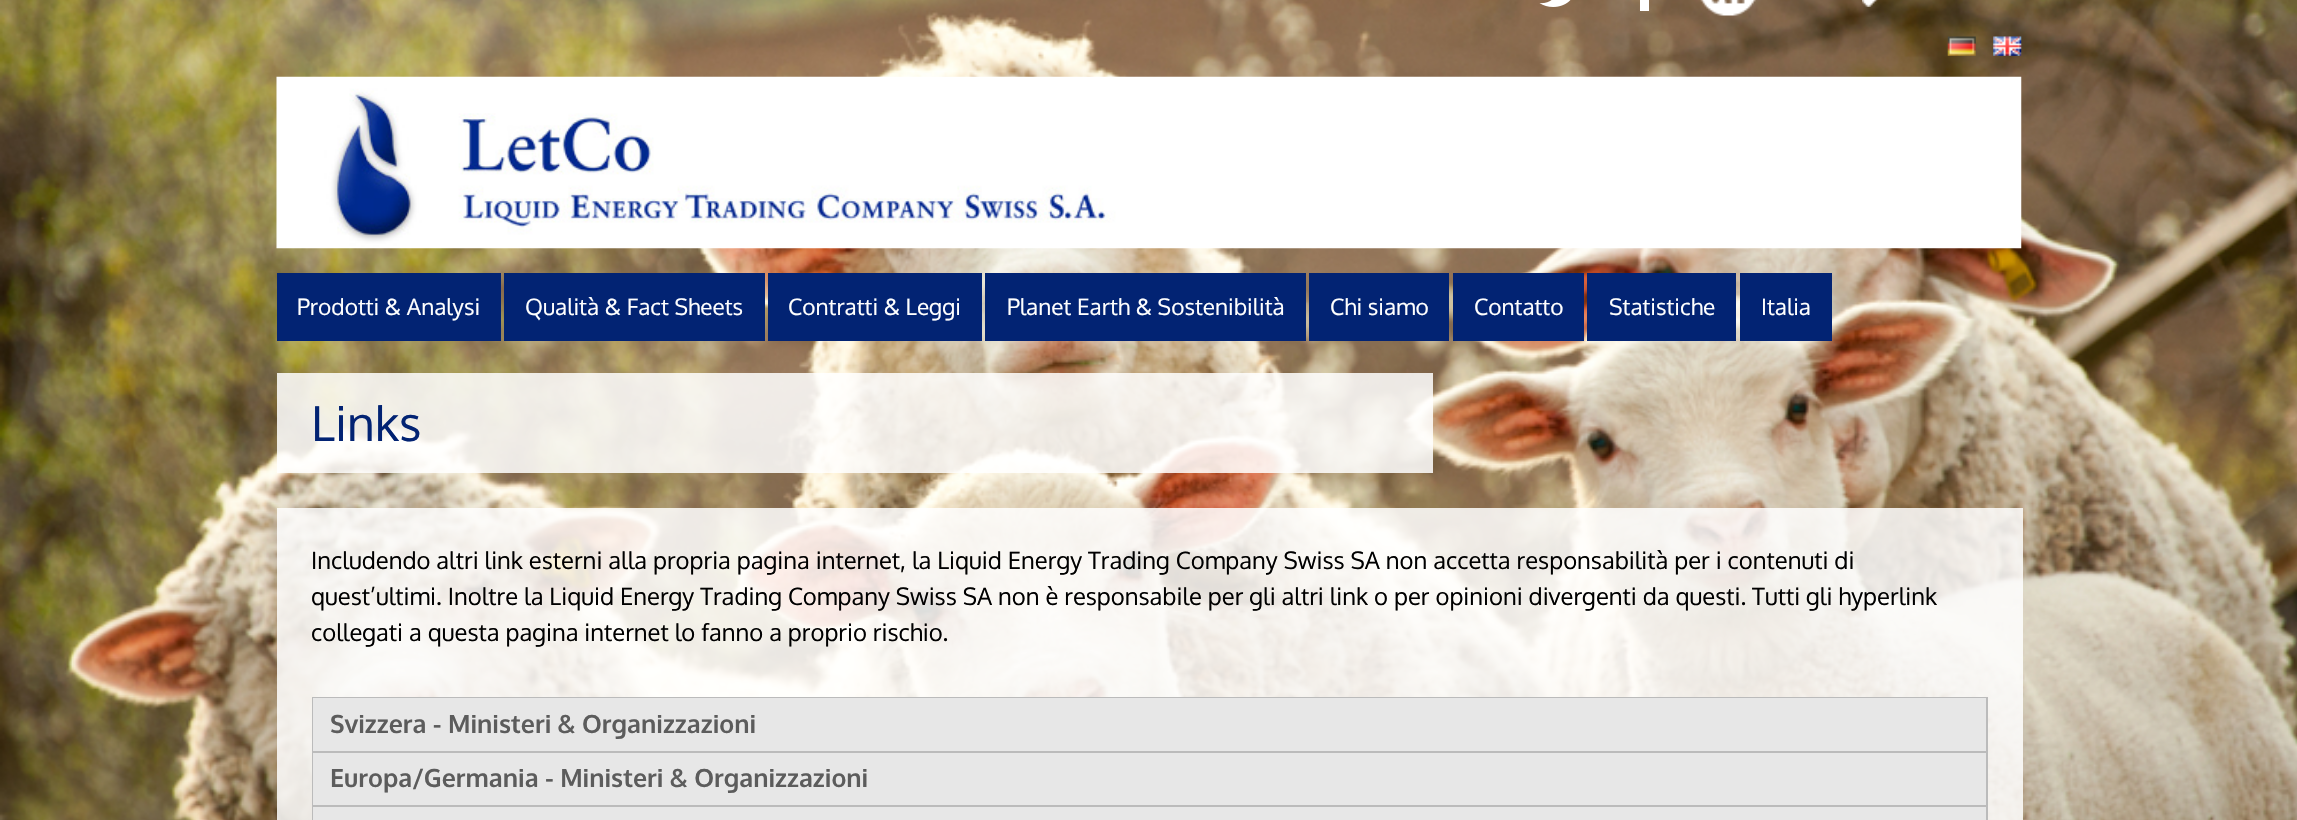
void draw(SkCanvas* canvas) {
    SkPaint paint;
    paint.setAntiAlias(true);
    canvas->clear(0xFFFFFFFF);
    canvas->drawImageRect(SkImages::DeferredFromEncodedData(SkData::MakeFromFileName("img1.png")), SkRect::MakeXYWH(0, 0, 2297, 820), SkSamplingOptions());
    canvas->drawImageRect(SkImages::DeferredFromEncodedData(SkData::MakeFromFileName("img2.png")), SkRect::MakeXYWH(1539, 0, 32, 7), SkSamplingOptions());
    paint.setColor(0xFFFFFFFF);
    canvas->drawRect(SkRect::MakeXYWH(1640, 0, 9, 11), paint);
    canvas->drawImageRect(SkImages::DeferredFromEncodedData(SkData::MakeFromFileName("img3.png")), SkRect::MakeXYWH(1700, 0, 56, 16), SkSamplingOptions());
    canvas->drawImageRect(SkImages::DeferredFromEncodedData(SkData::MakeFromFileName("img4.png")), SkRect::MakeXYWH(1862, 0, 16, 7), SkSamplingOptions());
    canvas->drawImageRect(SkImages::DeferredFromEncodedData(SkData::MakeFromFileName("img5.png")), SkRect::MakeXYWH(1947, 36, 29, 20), SkSamplingOptions());
    canvas->drawImageRect(SkImages::DeferredFromEncodedData(SkData::MakeFromFileName("img6.png")), SkRect::MakeXYWH(1993, 36, 29, 20), SkSamplingOptions());
    canvas->drawImageRect(SkImages::DeferredFromEncodedData(SkData::MakeFromFileName("img7.png")), SkRect::MakeXYWH(276, 76, 1746, 173), SkSamplingOptions());
    paint.setColor(0xFF022373);
    canvas->drawRect(SkRect::MakeXYWH(277, 273, 224, 68), paint);
    SkFont font1(fontMgr->matchFamilyStyle("Oxygen", SkFontStyle::Normal()), 22.6f);
    font1.setSubpixel(true);
    paint.setColor(0xFFFFFFFF);
    canvas->drawString("Prodotti & Analysi", 297, 315, font1, paint);
    paint.setColor(0xFF022373);
    canvas->drawRect(SkRect::MakeXYWH(504, 273, 261, 68), paint);
    paint.setColor(0xFFFFFFFF);
    canvas->drawString("Qualità & Fact Sheets", 525, 315, font1, paint);
    paint.setColor(0xFF022373);
    canvas->drawRect(SkRect::MakeXYWH(768, 273, 214, 68), paint);
    paint.setColor(0xFFFFFFFF);
    canvas->drawString("Contratti & Leggi", 788, 315, font1, paint);
    paint.setColor(0xFF022373);
    canvas->drawRect(SkRect::MakeXYWH(985, 273, 321, 68), paint);
    paint.setColor(0xFFFFFFFF);
    canvas->drawString("Planet Earth & Sostenibilità", 1007, 315, font1, paint);
    paint.setColor(0xFF022373);
    canvas->drawRect(SkRect::MakeXYWH(1309, 273, 140, 68), paint);
    paint.setColor(0xFFFFFFFF);
    canvas->drawString("Chi siamo", 1330, 315, font1, paint);
    paint.setColor(0xFF022373);
    canvas->drawRect(SkRect::MakeXYWH(1453, 273, 131, 68), paint);
    paint.setColor(0xFFFFFFFF);
    canvas->drawString("Contatto", 1474, 315, font1, paint);
    paint.setColor(0xFF022373);
    canvas->drawRect(SkRect::MakeXYWH(1587, 273, 149, 68), paint);
    paint.setColor(0xFFFFFFFF);
    canvas->drawString("Statistiche", 1609, 315, font1, paint);
    paint.setColor(0xFF022373);
    canvas->drawRect(SkRect::MakeXYWH(1740, 273, 92, 68), paint);
    paint.setColor(0xFFFFFFFF);
    canvas->drawString("Italia", 1761, 315, font1, paint);
    paint.setColor(0xD9FFFFFF);
    canvas->drawRect(SkRect::MakeXYWH(277, 373, 1156, 100), paint);
    SkFont font2(fontMgr->matchFamilyStyle("Oxygen", SkFontStyle::Normal()), 48);
    font2.setSubpixel(true);
    paint.setColor(0xFF022373);
    canvas->drawString("Links", 311, 441, font2, paint);
    paint.setColor(0xD9FFFFFF);
    canvas->drawRect(SkRect::MakeXYWH(277, 508, 1746, 189), paint);
    SkFont font3(fontMgr->matchFamilyStyle("Oxygen", SkFontStyle::Normal()), 23.8f);
    font3.setSubpixel(true);
    paint.setColor(0xFF000000);
    canvas->drawString("Includendo altri link esterni alla propria pagina internet, la Liquid Energy Trading Company Swiss SA non accetta responsabilità per i contenuti di", 311, 569, font3, paint);
    canvas->drawString("quest’ultimi. Inoltre la Liquid Energy Trading Company Swiss SA non è responsabile per gli altri link o per opinioni divergenti da questi. Tutti gli hyperlink", 311, 605, font3, paint);
    canvas->drawString("collegati a questa pagina internet lo fanno a proprio rischio.", 311, 641, font3, paint);
    paint.setColor(0xD9FFFFFF);
    canvas->drawRect(SkRect::MakeXYWH(277, 697, 1746, 123), paint);
    paint.setStyle(SkPaint::kStroke_Style);
    paint.setStrokeWidth(2);
    paint.setColor(0xFFBBBBBB);
    canvas->drawRect(SkRect::MakeXYWH(313, 698, 1674, 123), paint);
    paint.setStyle(SkPaint::kFill_Style);
    paint.setColor(0xFFE7E7E7);
    canvas->drawRect(SkRect::MakeXYWH(313, 698, 1673, 53), paint);
    SkFont font4(fontMgr->matchFamilyStyle("Oxygen", SkFontStyle::Bold()), 25);
    font4.setSubpixel(true);
    paint.setColor(0xFF5C5C5C);
    canvas->drawString("Svizzera - Ministeri & Organizzazioni", 330, 733, font4, paint);
    paint.setColor(0xFFBBBBBB);
    canvas->drawRect(SkRect::MakeXYWH(313, 751, 1673, 2), paint);
    paint.setColor(0xFFE7E7E7);
    canvas->drawRect(SkRect::MakeXYWH(313, 753, 1673, 52), paint);
    paint.setColor(0xFF5C5C5C);
    canvas->drawString("Europa/Germania - Ministeri & Organizzazioni", 330, 787, font4, paint);
    paint.setColor(0xFFBBBBBB);
    canvas->drawRect(SkRect::MakeXYWH(313, 805, 1673, 2), paint);
    paint.setColor(0xFFE7E7E7);
    canvas->drawRect(SkRect::MakeXYWH(313, 807, 1673, 13), paint);
}
